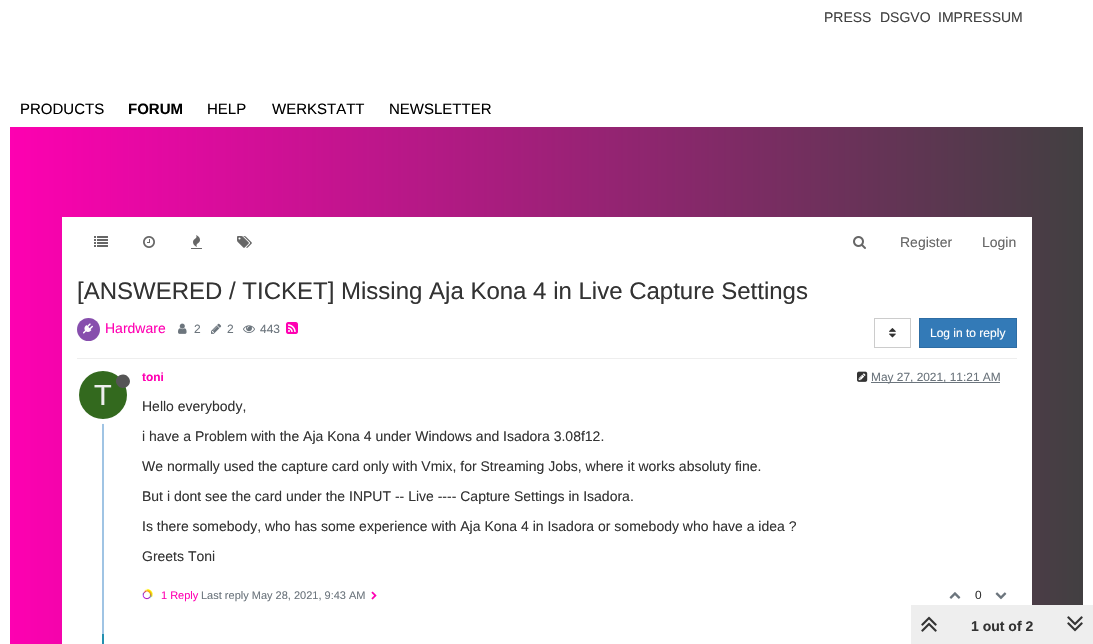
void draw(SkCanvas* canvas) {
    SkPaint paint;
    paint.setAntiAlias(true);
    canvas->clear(0xFFFFFFFF);
    {
        const SkColor colors[] = {0xFFFF00B2, 0xFF404040};
        const float stops[] = {0, 1};
        const SkPoint ends[] = {{0, 322}, {1093, 322}};
        paint.setShader(SkGradientShader::MakeLinear(ends, colors, stops, 2, SkTileMode::kClamp));
        paint.setAlpha(255);
    }
    canvas->drawRect(SkRect::MakeXYWH(10, 127, 1073, 517), paint);
    SkFont font1(fontMgr->matchFamilyStyle("Liberation Sans", SkFontStyle::Normal()), 14);
    font1.setSubpixel(true);
    paint.setShader(nullptr);
    paint.setColor(0xFF404040);
    canvas->drawString("PRESS", 824, 22, font1, paint);
    canvas->drawString("DSGVO", 880, 22, font1, paint);
    canvas->drawString("IMPRESSUM", 938, 22, font1, paint);
    SkFont font2(fontMgr->matchFamilyStyle("Liberation Sans", SkFontStyle::Normal()), 15);
    font2.setSubpixel(true);
    paint.setColor(0xFF000000);
    canvas->drawString("PRODUCTS", 20, 114, font2, paint);
    SkFont font3(fontMgr->matchFamilyStyle("Liberation Sans", SkFontStyle::Bold()), 15);
    font3.setSubpixel(true);
    canvas->drawString("FORUM", 128, 114, font3, paint);
    canvas->drawString("HELP", 207, 114, font2, paint);
    canvas->drawString("WERKSTATT", 272, 114, font2, paint);
    canvas->drawString("NEWSLETTER", 389, 114, font2, paint);
    paint.setColor(0xFFFFFFFF);
    canvas->drawRect(SkRect::MakeXYWH(62, 217, 970, 427), paint);
    canvas->drawImageRect(SkImages::DeferredFromEncodedData(SkData::MakeFromFileName("img1.png")), SkRect::MakeXYWH(94, 236, 14, 11), SkSamplingOptions());
    canvas->drawImageRect(SkImages::DeferredFromEncodedData(SkData::MakeFromFileName("img2.png")), SkRect::MakeXYWH(143, 236, 12, 12), SkSamplingOptions());
    canvas->drawImageRect(SkImages::DeferredFromEncodedData(SkData::MakeFromFileName("img3.png")), SkRect::MakeXYWH(191, 235, 11, 14), SkSamplingOptions());
    canvas->drawImageRect(SkImages::DeferredFromEncodedData(SkData::MakeFromFileName("img4.png")), SkRect::MakeXYWH(237, 236, 15, 12), SkSamplingOptions());
    canvas->drawImageRect(SkImages::DeferredFromEncodedData(SkData::MakeFromFileName("img5.png")), SkRect::MakeXYWH(853, 236, 13, 13), SkSamplingOptions());
    paint.setColor(0xFF666666);
    canvas->drawString("Register", 900, 247, font1, paint);
    canvas->drawString("Login", 982, 247, font1, paint);
    SkFont font4(fontMgr->matchFamilyStyle("Liberation Sans", SkFontStyle::Normal()), 24);
    font4.setSubpixel(true);
    paint.setColor(0xFF333333);
    canvas->drawString("[ANSWERED / TICKET] Missing Aja Kona 4 in Live Capture Settings", 77, 299, font4, paint);
    paint.setColor(0xFFEEEEEE);
    canvas->drawRect(SkRect::MakeXYWH(77, 358, 940, 1), paint);
    paint.setColor(0xFF874EAD);
    canvas->drawCircle(88.5f, 329.5f, 11.5f, paint);
    canvas->drawImageRect(SkImages::DeferredFromEncodedData(SkData::MakeFromFileName("img6.png")), SkRect::MakeXYWH(83, 323, 10, 11), SkSamplingOptions());
    paint.setColor(0xFFFF00B2);
    canvas->drawString("Hardware", 105, 333, font1, paint);
    canvas->drawImageRect(SkImages::DeferredFromEncodedData(SkData::MakeFromFileName("img7.png")), SkRect::MakeXYWH(178, 323, 9, 11), SkSamplingOptions());
    SkFont font5(fontMgr->matchFamilyStyle("Liberation Sans", SkFontStyle::Normal()), 12);
    font5.setSubpixel(true);
    paint.setColor(0xFF6C757D);
    canvas->drawString("2", 194, 333, font5, paint);
    canvas->drawImageRect(SkImages::DeferredFromEncodedData(SkData::MakeFromFileName("img8.png")), SkRect::MakeXYWH(211, 323, 11, 11), SkSamplingOptions());
    canvas->drawString("2", 227, 333, font5, paint);
    canvas->drawImageRect(SkImages::DeferredFromEncodedData(SkData::MakeFromFileName("img9.png")), SkRect::MakeXYWH(243, 325, 12, 8), SkSamplingOptions());
    canvas->drawString("443", 260, 333, font5, paint);
    canvas->drawImageRect(SkImages::DeferredFromEncodedData(SkData::MakeFromFileName("img10.png")), SkRect::MakeXYWH(286, 322, 12, 12), SkSamplingOptions());
    paint.setStyle(SkPaint::kStroke_Style);
    paint.setStrokeWidth(1);
    paint.setColor(0xFFCCCCCC);
    canvas->drawRect(SkRect::MakeXYWH(874.5f, 318.5f, 36, 29), paint);
    canvas->drawImageRect(SkImages::DeferredFromEncodedData(SkData::MakeFromFileName("img11.png")), SkRect::MakeXYWH(889, 328, 7, 10), SkSamplingOptions());
    paint.setStyle(SkPaint::kFill_Style);
    paint.setColor(0xFF337AB7);
    canvas->drawRect(SkRect::MakeXYWH(919.5f, 318.5f, 97, 29), paint);
    paint.setStyle(SkPaint::kStroke_Style);
    paint.setColor(0xFF2E6DA4);
    canvas->drawRect(SkRect::MakeXYWH(919.5f, 318.5f, 97, 29), paint);
    paint.setStyle(SkPaint::kFill_Style);
    paint.setColor(0xFFFFFFFF);
    canvas->drawString("Log in to reply", 930, 337, font5, paint);
    paint.setColor(0xFFA0C4E4);
    canvas->drawRect(SkRect::MakeXYWH(102, 369, 2, 265), paint);
    SkFont font6(fontMgr->matchFamilyStyle("Liberation Sans", SkFontStyle::Bold()), 11.9f);
    font6.setSubpixel(true);
    paint.setColor(0xFFFF00B2);
    canvas->drawString("toni", 142, 381, font6, paint);
    canvas->drawImageRect(SkImages::DeferredFromEncodedData(SkData::MakeFromFileName("img12.png")), SkRect::MakeXYWH(857, 371, 11, 11), SkSamplingOptions());
    paint.setColor(0xFF6C757D);
    canvas->drawRect(SkRect::MakeXYWH(871, 382, 129, 1), paint);
    SkFont font7(fontMgr->matchFamilyStyle("Liberation Sans", SkFontStyle::Normal()), 11.9f);
    font7.setSubpixel(true);
    canvas->drawString("May 27, 2021, 11:21 AM", 871, 381, font7, paint);
    paint.setStyle(SkPaint::kStroke_Style);
    paint.setStrokeWidth(5);
    paint.setColor(0xFFFFFFFF);
    canvas->drawCircle(103, 395, 26.5f, paint);
    paint.setStyle(SkPaint::kFill_Style);
    paint.setColor(0xFF33691E);
    canvas->drawCircle(103, 395, 24, paint);
    paint.setColor(0xFF555555);
    canvas->drawPath(SkPathBuilder().moveTo(129, 378).cubicTo(133.5f, 385.5f, 121.5f, 392.5f, 117, 384.5f).cubicTo(112.5f, 377, 124, 370, 129, 378).close().detach(), paint);
    SkFont font8(fontMgr->matchFamilyStyle("Liberation Sans", SkFontStyle::Normal()), 29);
    font8.setSubpixel(true);
    paint.setColor(0xFFEEEEEE);
    canvas->drawString("T", 94, 405, font8, paint);
    paint.setColor(0xFF333333);
    canvas->drawString("Hello everybody,", 142, 411, font1, paint);
    canvas->drawString("i have a Problem with the Aja Kona 4 under Windows and Isadora 3.08f12.", 142, 441, font1, paint);
    canvas->drawString("We normally used the capture card only with Vmix, for Streaming Jobs, where it works absoluty fine.", 142, 471, font1, paint);
    canvas->drawString("But i dont see the card under the INPUT -- Live ---- Capture Settings in Isadora.", 142, 501, font1, paint);
    canvas->drawString("Is there somebody, who has some experience with Aja Kona 4 in Isadora or somebody who have a idea ?", 142, 531, font1, paint);
    canvas->drawString("Greets Toni", 142, 561, font1, paint);
    canvas->drawImageRect(SkImages::DeferredFromEncodedData(SkData::MakeFromFileName("img13.png")), SkRect::MakeXYWH(142, 588, 11, 12), SkSamplingOptions());
    SkFont font9(fontMgr->matchFamilyStyle("Liberation Sans", SkFontStyle::Normal()), 11);
    font9.setSubpixel(true);
    paint.setColor(0xFFFF00B2);
    canvas->drawString("1 Reply", 161, 599, font9, paint);
    paint.setColor(0xFF6C757D);
    canvas->drawString("Last reply May 28, 2021, 9:43 AM", 201, 599, font9, paint);
    canvas->drawImageRect(SkImages::DeferredFromEncodedData(SkData::MakeFromFileName("img14.png")), SkRect::MakeXYWH(371, 591, 6, 9), SkSamplingOptions());
    canvas->drawImageRect(SkImages::DeferredFromEncodedData(SkData::MakeFromFileName("img15.png")), SkRect::MakeXYWH(949, 592, 12, 7), SkSamplingOptions());
    paint.setColor(0xFF333333);
    canvas->drawString("0", 975, 599, font7, paint);
    canvas->drawImageRect(SkImages::DeferredFromEncodedData(SkData::MakeFromFileName("img16.png")), SkRect::MakeXYWH(995, 592, 12, 8), SkSamplingOptions());
    paint.setColor(0xFF2390B0);
    canvas->drawRect(SkRect::MakeXYWH(102, 634, 2, 10), paint);
    paint.setColor(0xFFEEEEEE);
    canvas->drawRect(SkRect::MakeXYWH(911, 605, 182, 39), paint);
    canvas->drawImageRect(SkImages::DeferredFromEncodedData(SkData::MakeFromFileName("img17.png")), SkRect::MakeXYWH(921, 616, 16, 16), SkSamplingOptions());
    SkFont font10(fontMgr->matchFamilyStyle("Liberation Sans", SkFontStyle::Bold()), 14);
    font10.setSubpixel(true);
    paint.setColor(0xFF333333);
    canvas->drawString("1 out of 2", 971, 631, font10, paint);
    canvas->drawImageRect(SkImages::DeferredFromEncodedData(SkData::MakeFromFileName("img18.png")), SkRect::MakeXYWH(1067, 616, 16, 16), SkSamplingOptions());
}
